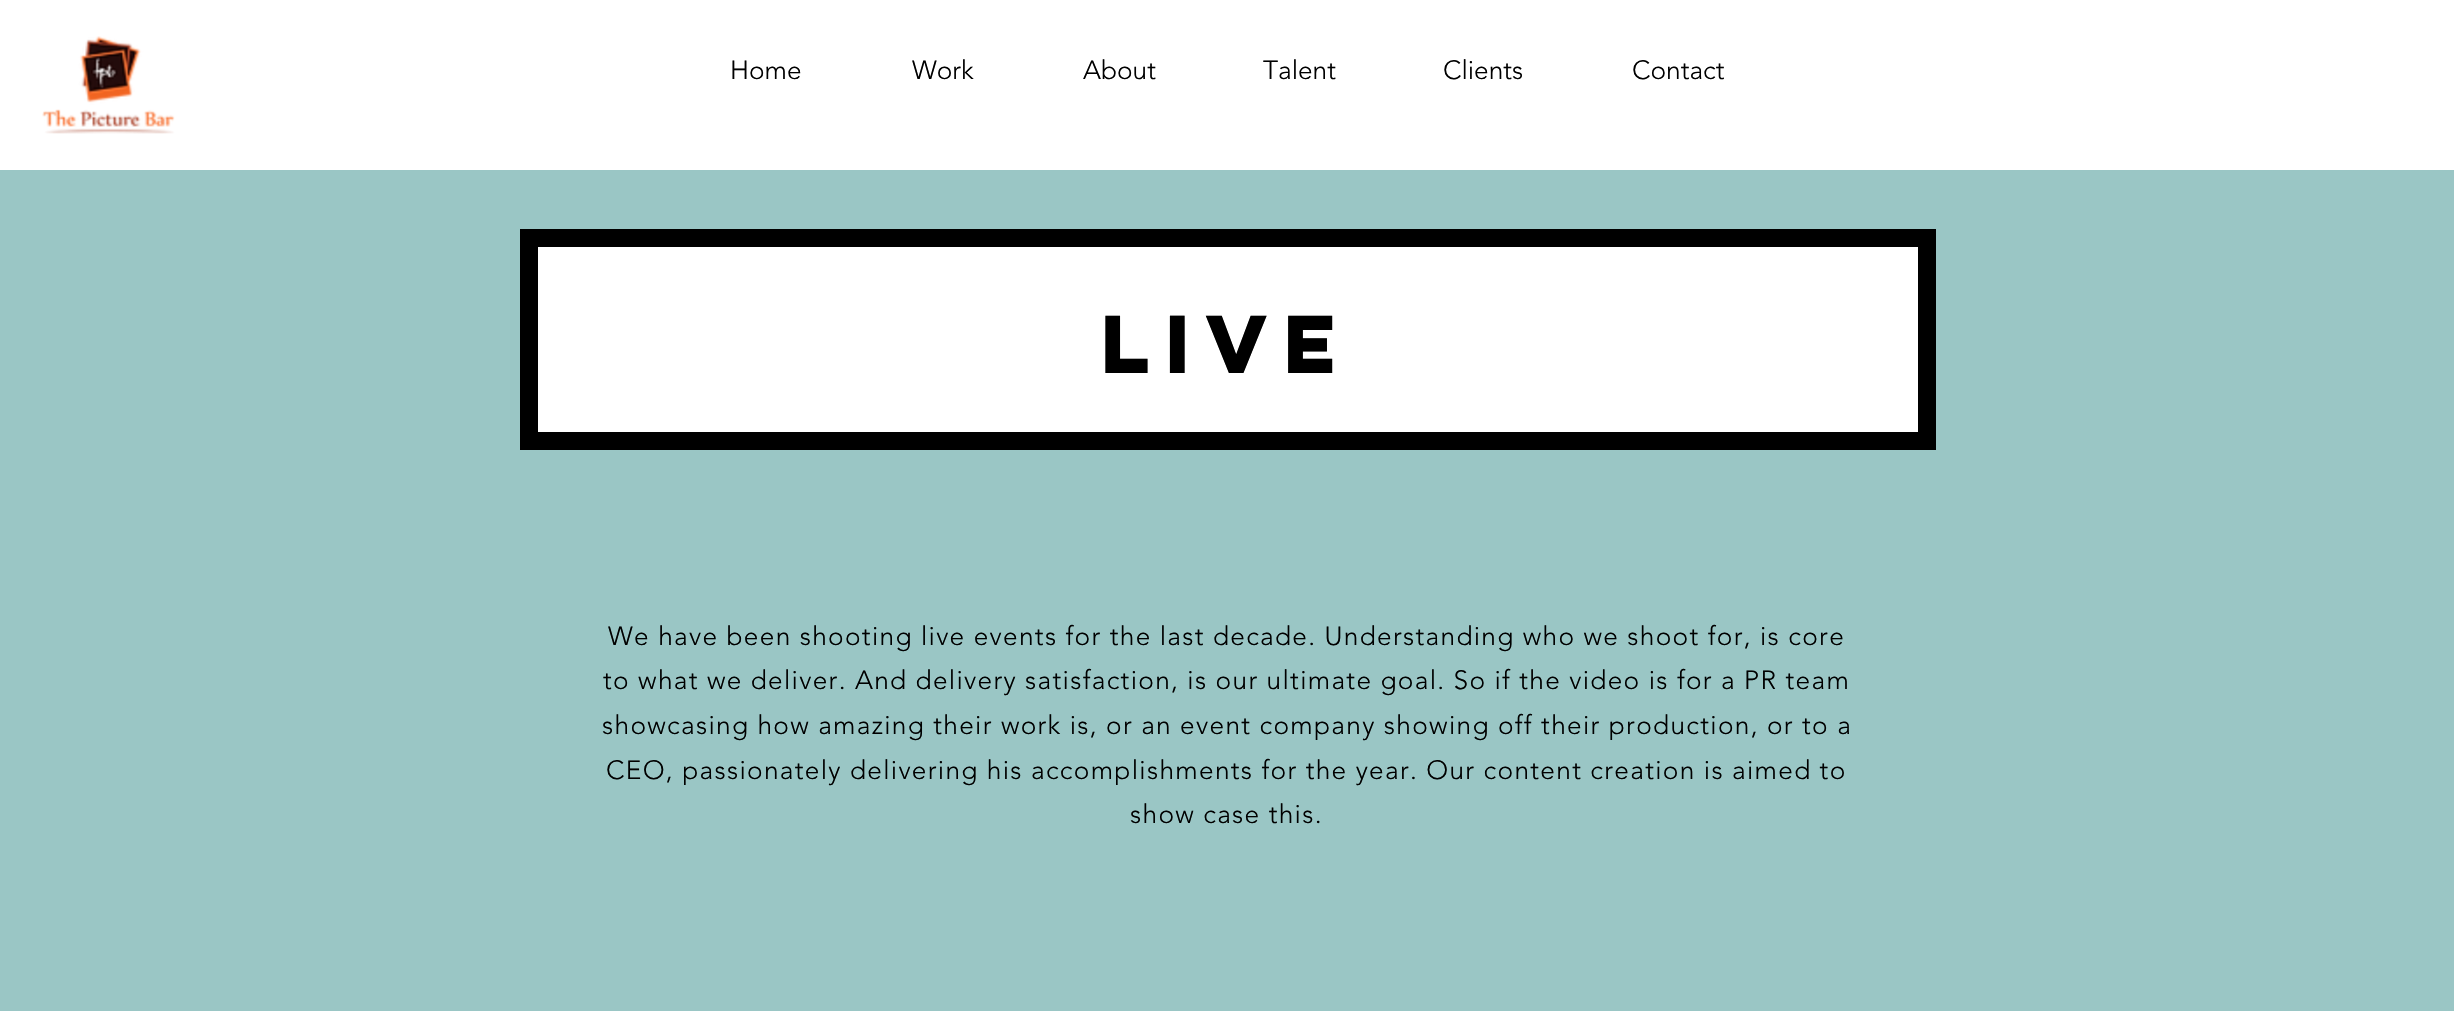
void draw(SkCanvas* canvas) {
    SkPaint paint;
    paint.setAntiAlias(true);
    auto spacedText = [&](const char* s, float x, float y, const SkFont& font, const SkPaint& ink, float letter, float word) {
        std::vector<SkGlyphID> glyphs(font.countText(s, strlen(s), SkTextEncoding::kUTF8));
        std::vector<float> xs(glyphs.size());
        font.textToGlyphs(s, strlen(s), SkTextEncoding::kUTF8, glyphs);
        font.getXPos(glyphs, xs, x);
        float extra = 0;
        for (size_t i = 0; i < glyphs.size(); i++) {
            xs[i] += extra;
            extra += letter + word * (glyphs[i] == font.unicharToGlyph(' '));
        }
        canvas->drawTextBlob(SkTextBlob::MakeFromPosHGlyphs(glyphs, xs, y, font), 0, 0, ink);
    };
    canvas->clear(0xFF9AC6C5);
    paint.setColor(0xFFFFFFFF);
    canvas->drawRect(SkRect::MakeXYWH(0, 0, 2454, 170), paint);
    canvas->drawImageRect(SkImages::DeferredFromEncodedData(SkData::MakeFromFileName("img1.png")), SkRect::MakeXYWH(42, 36, 133, 98), SkSamplingOptions());
    SkFont font1(fontMgr->matchFamilyStyle("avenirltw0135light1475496", SkFontStyle(300, SkFontStyle::kNormal_Width, SkFontStyle::kUpright_Slant)), 26.25f);
    font1.setSubpixel(true);
    paint.setColor(0xFF000000);
    canvas->drawString("Home", 730, 79, font1, paint);
    canvas->drawString("Work", 912, 79, font1, paint);
    canvas->drawString("About", 1083, 79, font1, paint);
    canvas->drawString("Talent", 1263, 79, font1, paint);
    canvas->drawString("Clients", 1443, 79, font1, paint);
    canvas->drawString("Contact", 1632, 79, font1, paint);
    paint.setColor(0xFFFFFFFF);
    canvas->drawRect(SkRect::MakeXYWH(529, 238, 1398, 203), paint);
    paint.setStyle(SkPaint::kStroke_Style);
    paint.setStrokeWidth(18);
    paint.setColor(0xFF000000);
    canvas->drawRect(SkRect::MakeXYWH(529, 238, 1398, 203), paint);
    SkFont font2(fontMgr->matchFamilyStyle("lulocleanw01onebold", SkFontStyle::Bold()), 73.5f);
    font2.setSubpixel(true);
    paint.setStyle(SkPaint::kFill_Style);
    canvas->drawString("Live", 1101, 373, font2, paint);
    spacedText("We have been shooting live events for the last decade. Understanding who we shoot for, is core", 608, 645, font1, paint, 1.31f, 0);
    spacedText("to what we deliver. And delivery satisfaction, is our ultimate goal. So if the video is for a PR team", 603, 689, font1, paint, 1.31f, 0);
    spacedText("showcasing how amazing their work is, or an event company showing off their production, or to a", 602, 734, font1, paint, 1.31f, 0);
    spacedText("CEO, passionately delivering his accomplishments for the year. Our content creation is aimed to", 606, 779, font1, paint, 1.31f, 0);
    spacedText("show case this.", 1130, 823, font1, paint, 1.31f, 0);
}
